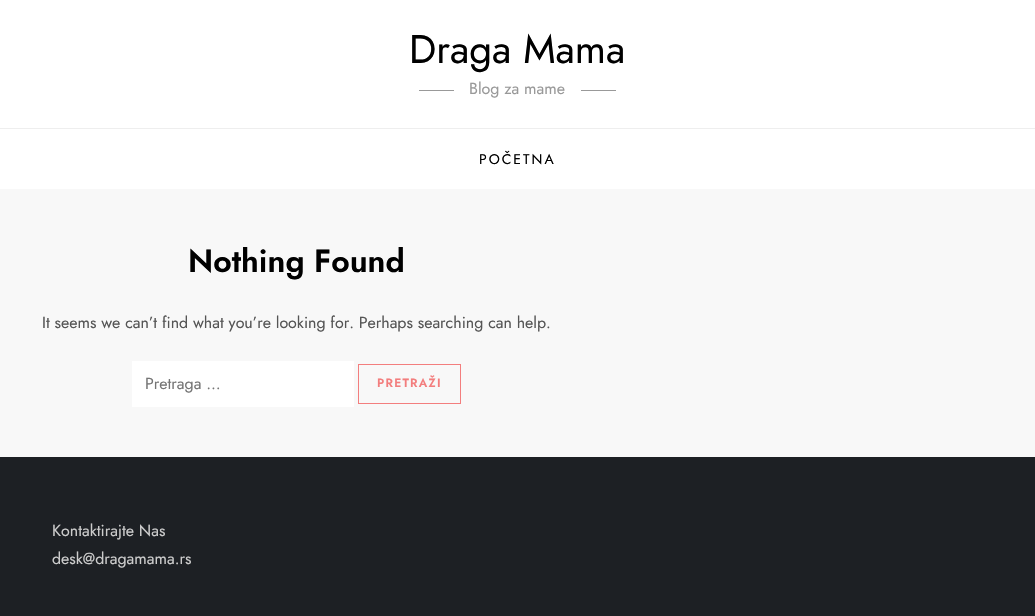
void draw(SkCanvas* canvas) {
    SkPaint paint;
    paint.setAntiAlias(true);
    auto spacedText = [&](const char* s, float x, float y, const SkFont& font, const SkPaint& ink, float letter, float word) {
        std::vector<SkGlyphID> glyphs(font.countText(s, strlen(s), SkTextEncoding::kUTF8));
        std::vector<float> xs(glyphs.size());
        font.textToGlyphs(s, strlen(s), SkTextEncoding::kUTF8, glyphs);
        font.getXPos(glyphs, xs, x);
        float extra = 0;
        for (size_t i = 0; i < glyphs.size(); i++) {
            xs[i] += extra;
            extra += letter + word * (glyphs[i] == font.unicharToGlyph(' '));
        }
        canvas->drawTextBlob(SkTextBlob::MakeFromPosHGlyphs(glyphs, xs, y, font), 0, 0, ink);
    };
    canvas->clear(0xFFF8F8F8);
    paint.setColor(0xFFFFFFFF);
    canvas->drawRect(SkRect::MakeXYWH(0, 0, 1035, 189), paint);
    SkFont font1(fontMgr->matchFamilyStyle("Jost", SkFontStyle::Normal()), 40);
    font1.setSubpixel(true);
    paint.setColor(0xFF000000);
    canvas->drawString("Draga Mama", 409, 63, font1, paint);
    paint.setColor(0xFF999999);
    canvas->drawRect(SkRect::MakeXYWH(419, 90, 35, 1), paint);
    SkFont font2(fontMgr->matchFamilyStyle("Jost", SkFontStyle::Normal()), 16);
    font2.setSubpixel(true);
    canvas->drawString("Blog za mame", 469, 94, font2, paint);
    canvas->drawRect(SkRect::MakeXYWH(581, 90, 35, 1), paint);
    paint.setColor(0xFFEEEEEE);
    canvas->drawRect(SkRect::MakeXYWH(0, 128, 1035, 1), paint);
    SkFont font3(fontMgr->matchFamilyStyle("Jost", SkFontStyle::Normal()), 14);
    font3.setSubpixel(true);
    paint.setColor(0xFF000000);
    spacedText("POČETNA", 479, 164, font3, paint, 2, 0);
    SkFont font4(fontMgr->matchFamilyStyle("Jost", SkFontStyle(600, SkFontStyle::kNormal_Width, SkFontStyle::kUpright_Slant)), 32);
    font4.setSubpixel(true);
    canvas->drawString("Nothing Found", 188, 272, font4, paint);
    paint.setColor(0xFF555555);
    canvas->drawString("It seems we can’t find what you’re looking for. Perhaps searching can help.", 42, 328, font2, paint);
    paint.setColor(0xFFFFFFFF);
    canvas->drawRect(SkRect::MakeXYWH(132, 361, 222, 46), paint);
    paint.setColor(0xFF757575);
    canvas->drawString("Pretraga …", 145, 389, font2, paint);
    paint.setStyle(SkPaint::kStroke_Style);
    paint.setStrokeWidth(1);
    paint.setColor(0xFFF37E7E);
    canvas->drawRect(SkRect::MakeXYWH(358.5f, 364.5f, 102, 39), paint);
    SkFont font5(fontMgr->matchFamilyStyle("Jost", SkFontStyle(600, SkFontStyle::kNormal_Width, SkFontStyle::kUpright_Slant)), 12);
    font5.setSubpixel(true);
    paint.setStyle(SkPaint::kFill_Style);
    spacedText("PRETRAŽI", 377, 387, font5, paint, 1.25f, 0);
    paint.setColor(0xFF1D2024);
    canvas->drawRect(SkRect::MakeXYWH(0, 457, 1035, 159), paint);
    paint.setColor(0xFFCCCCCC);
    canvas->drawString("Kontaktirajte Nas", 52, 536, font2, paint);
    canvas->drawString("desk@dragamama.rs", 52, 564, font2, paint);
}
